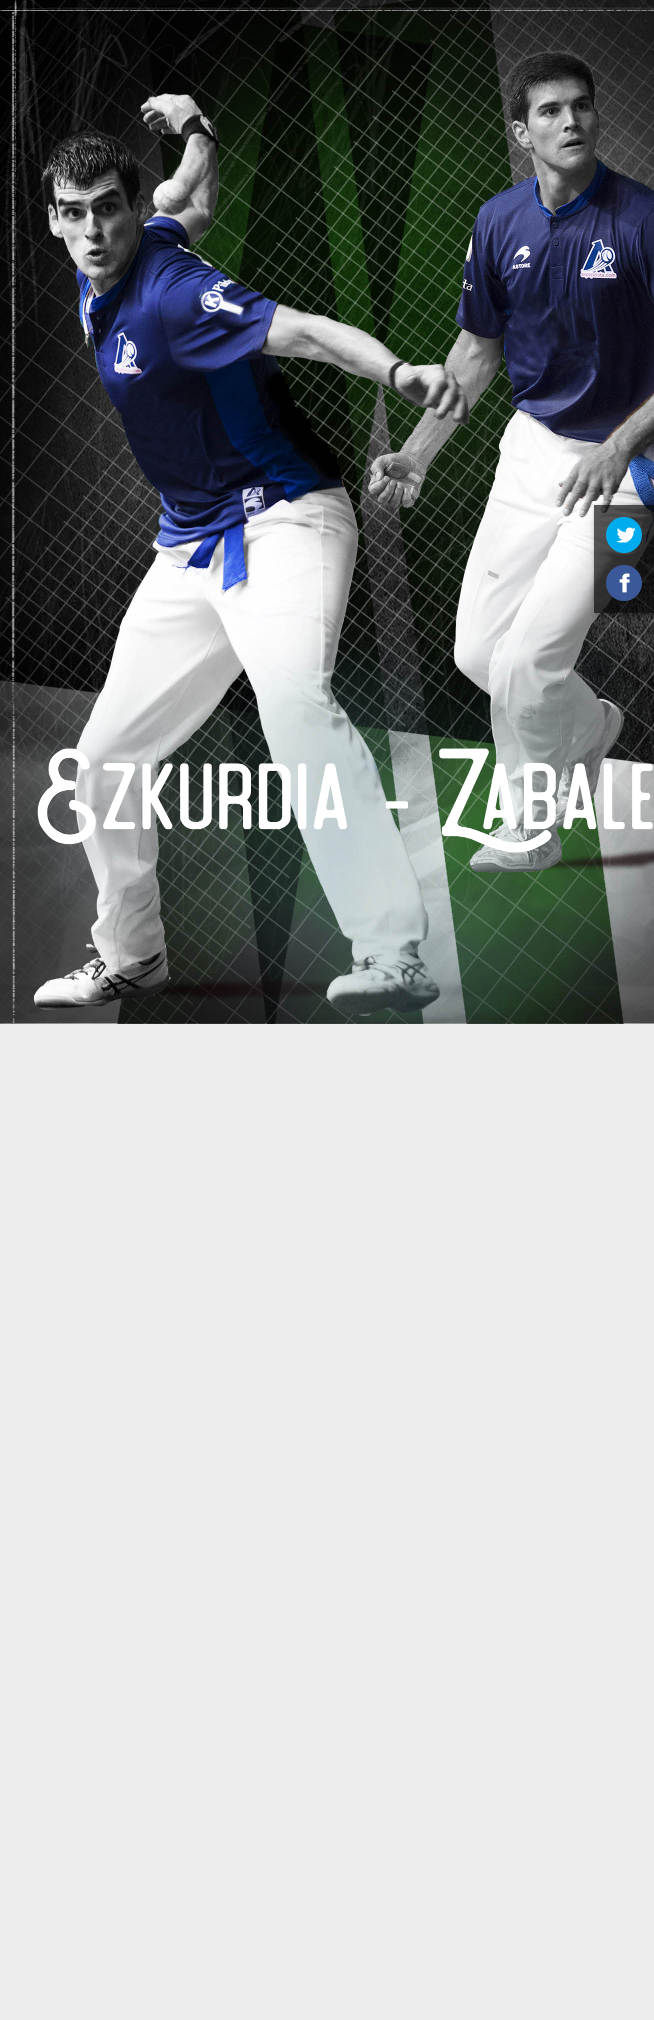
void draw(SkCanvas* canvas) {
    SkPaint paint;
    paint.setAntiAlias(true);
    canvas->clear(0xFFEDEDED);
    canvas->drawImageRect(SkImages::DeferredFromEncodedData(SkData::MakeFromFileName("img1.png")), SkRect::MakeXYWH(0, 0, 654, 1024), SkSamplingOptions());
    canvas->drawImageRect(SkImages::DeferredFromEncodedData(SkData::MakeFromFileName("img2.png")), SkRect::MakeXYWH(37, 748, 616, 105), SkSamplingOptions());
    canvas->save();
    canvas->clipPath(SkPathBuilder(SkPathFillType::kEvenOdd).moveTo(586, 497).lineTo(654, 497).lineTo(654, 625).lineTo(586, 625).close().moveTo(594, 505).lineTo(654, 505).lineTo(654, 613).lineTo(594, 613).close().detach(), true);
    paint.setColor(0x66000000);
    paint.setMaskFilter(SkMaskFilter::MakeBlur(kNormal_SkBlurStyle, 3));
    canvas->drawRect(SkRect::MakeXYWH(596, 507, 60, 108), paint);
    paint.setMaskFilter(nullptr);
    canvas->restore();
    paint.setColor(0xA6000000);
    canvas->drawRect(SkRect::MakeXYWH(594, 505, 60, 108), paint);
    paint.setColor(0xFF00ACED);
    canvas->drawCircle(624, 535, 18, paint);
    canvas->drawImageRect(SkImages::DeferredFromEncodedData(SkData::MakeFromFileName("img3.png")), SkRect::MakeXYWH(616, 527, 20, 16), SkSamplingOptions());
    paint.setColor(0xFF3B5998);
    canvas->drawCircle(624, 583, 18, paint);
    canvas->drawImageRect(SkImages::DeferredFromEncodedData(SkData::MakeFromFileName("img4.png")), SkRect::MakeXYWH(619, 573, 11, 20), SkSamplingOptions());
}
